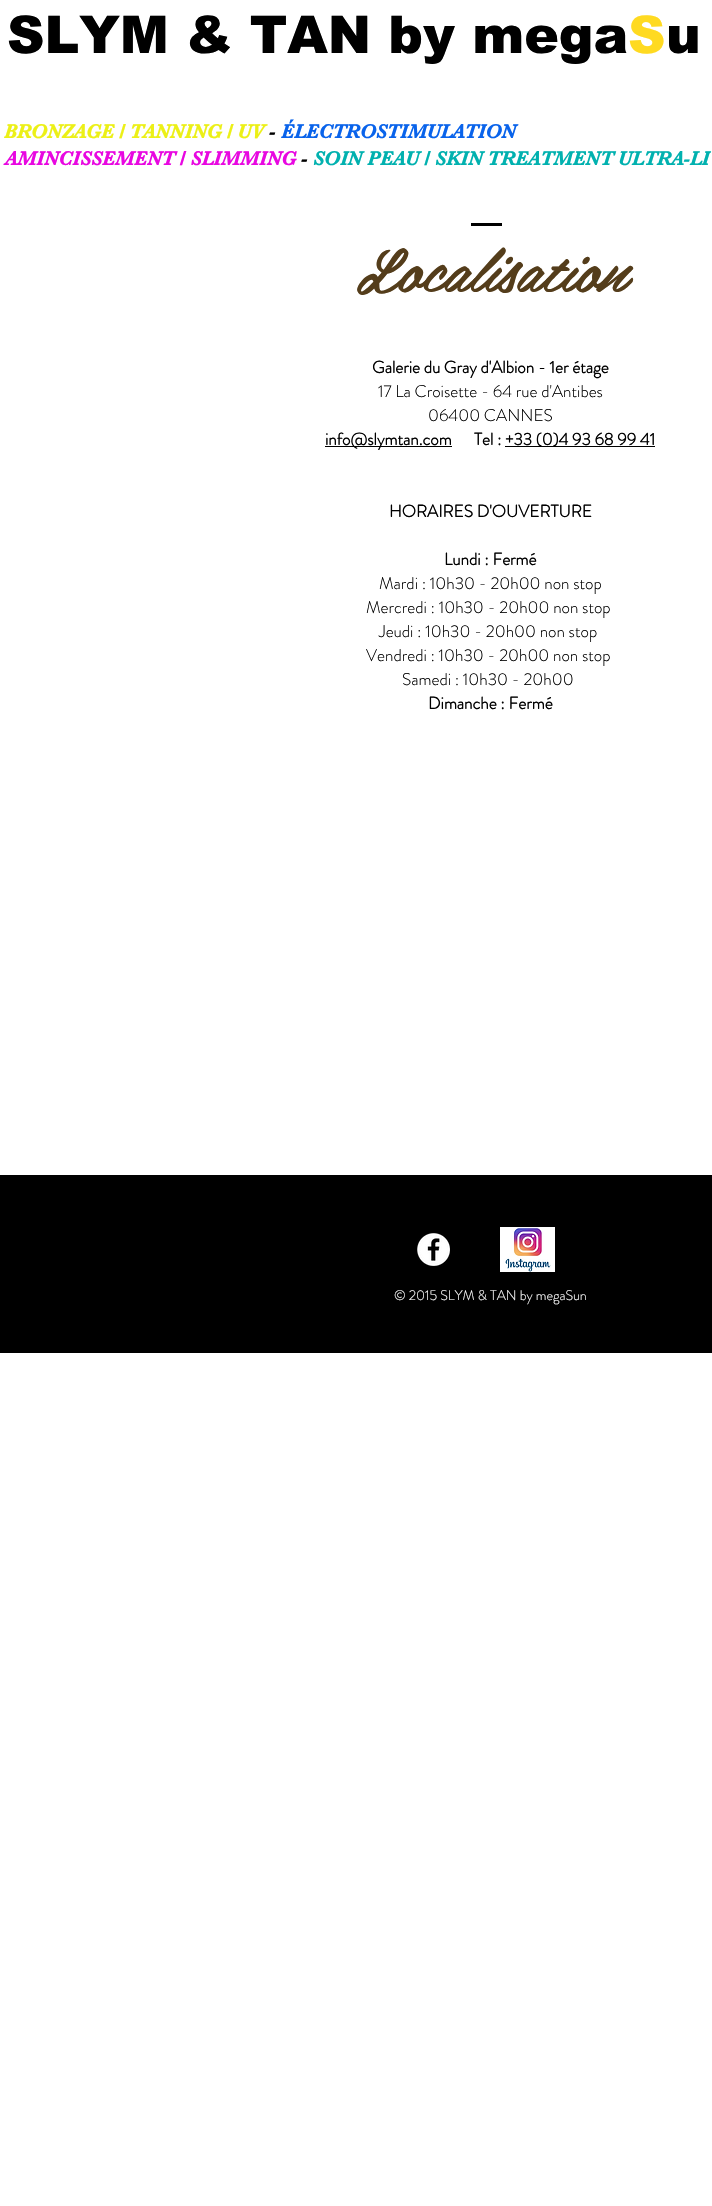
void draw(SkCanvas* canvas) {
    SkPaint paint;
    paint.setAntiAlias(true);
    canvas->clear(0xFFFFFFFF);
    SkFont font1(fontMgr->matchFamilyStyle("arial", SkFontStyle(900, SkFontStyle::kNormal_Width, SkFontStyle::kUpright_Slant)), 52);
    font1.setSubpixel(true);
    paint.setColor(0xFF000000);
    canvas->drawString("SLYM & TAN by mega", 7, 53, font1, paint);
    paint.setColor(0xFFFFDA21);
    canvas->drawString("S", 628, 53, font1, paint);
    paint.setColor(0xFF000000);
    canvas->drawString("u", 666, 53, font1, paint);
    SkFont font2(fontMgr->matchFamilyStyle("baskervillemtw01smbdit", SkFontStyle::Bold()), 20);
    font2.setSubpixel(true);
    paint.setColor(0xFFECF016);
    canvas->drawString("BRONZAGE / TANNING / UV", 4, 138, font2, paint);
    paint.setColor(0xFF000000);
    canvas->drawString("-", 269, 138, font2, paint);
    paint.setColor(0xFF0963EB);
    canvas->drawString("ÉLECTROSTIMULATION", 281, 138, font2, paint);
    paint.setColor(0xFFE807E1);
    canvas->drawString("AMINCISSEMENT / SLIMMING", 5, 165, font2, paint);
    paint.setColor(0xFF000000);
    canvas->drawString("-", 301, 165, font2, paint);
    paint.setColor(0xFF01B1AF);
    canvas->drawString("SOIN PEAU / SKIN TREATMENT ULTRA-LI", 313, 165, font2, paint);
    paint.setColor(0xFF000000);
    canvas->drawRect(SkRect::MakeXYWH(471, 223, 31, 3), paint);
    SkFont font3(fontMgr->matchFamilyStyle("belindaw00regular", SkFontStyle::Italic()), 60);
    font3.setSubpixel(true);
    paint.setColor(0xFF543D1B);
    canvas->drawString("Localisation", 355, 292, font3, paint);
    SkFont font4(fontMgr->matchFamilyStyle("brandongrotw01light", SkFontStyle::Bold()), 17);
    font4.setSubpixel(true);
    paint.setColor(0xFF000000);
    canvas->drawString("Galerie du Gray d'Albion - 1er étage", 372, 373, font4, paint);
    SkFont font5(fontMgr->matchFamilyStyle("brandongrotw01light", SkFontStyle(300, SkFontStyle::kNormal_Width, SkFontStyle::kUpright_Slant)), 17);
    font5.setSubpixel(true);
    canvas->drawString("17 La Croisette - 64 rue d'Antibes", 378, 397, font5, paint);
    canvas->drawString("06400 CANNES", 428, 421, font5, paint);
    canvas->drawRect(SkRect::MakeXYWH(325, 446, 127, 1), paint);
    canvas->drawString("info@slymtan.com", 325, 445, font4, paint);
    canvas->drawString("Tel :", 474, 445, font4, paint);
    canvas->drawRect(SkRect::MakeXYWH(505, 446, 150, 1), paint);
    canvas->drawString("+33 (0)4 93 68 99 41", 505, 445, font4, paint);
    canvas->drawString("HORAIRES D'OUVERTURE", 389, 517, font4, paint);
    canvas->drawString("Lundi : Fermé", 444, 565, font4, paint);
    canvas->drawString("Mardi : 10h30 - 20h00 non stop", 379, 589, font5, paint);
    canvas->drawString("Mercredi : 10h30 - 20h00 non stop", 366, 613, font5, paint);
    canvas->drawString("Jeudi : 10h30 - 20h00 non stop", 379, 637, font5, paint);
    canvas->drawString("Vendredi : 10h30 - 20h00 non stop", 366, 661, font5, paint);
    canvas->drawString("Samedi : 10h30 - 20h00", 402, 685, font5, paint);
    canvas->drawString("Dimanche : Fermé", 428, 709, font4, paint);
    canvas->drawRect(SkRect::MakeXYWH(0, 1175, 712, 178), paint);
    canvas->drawImageRect(SkImages::DeferredFromEncodedData(SkData::MakeFromFileName("img1.png")), SkRect::MakeXYWH(417, 1233, 33, 33), SkSamplingOptions());
    canvas->drawImageRect(SkImages::DeferredFromEncodedData(SkData::MakeFromFileName("img2.png")), SkRect::MakeXYWH(500, 1227, 55, 45), SkSamplingOptions());
    SkFont font6(fontMgr->matchFamilyStyle("brandongrotw01light", SkFontStyle(300, SkFontStyle::kNormal_Width, SkFontStyle::kUpright_Slant)), 14);
    font6.setSubpixel(true);
    paint.setColor(0xFFFFFFFF);
    canvas->drawString("© 2015 SLYM & TAN by megaSun", 394, 1300, font6, paint);
}
